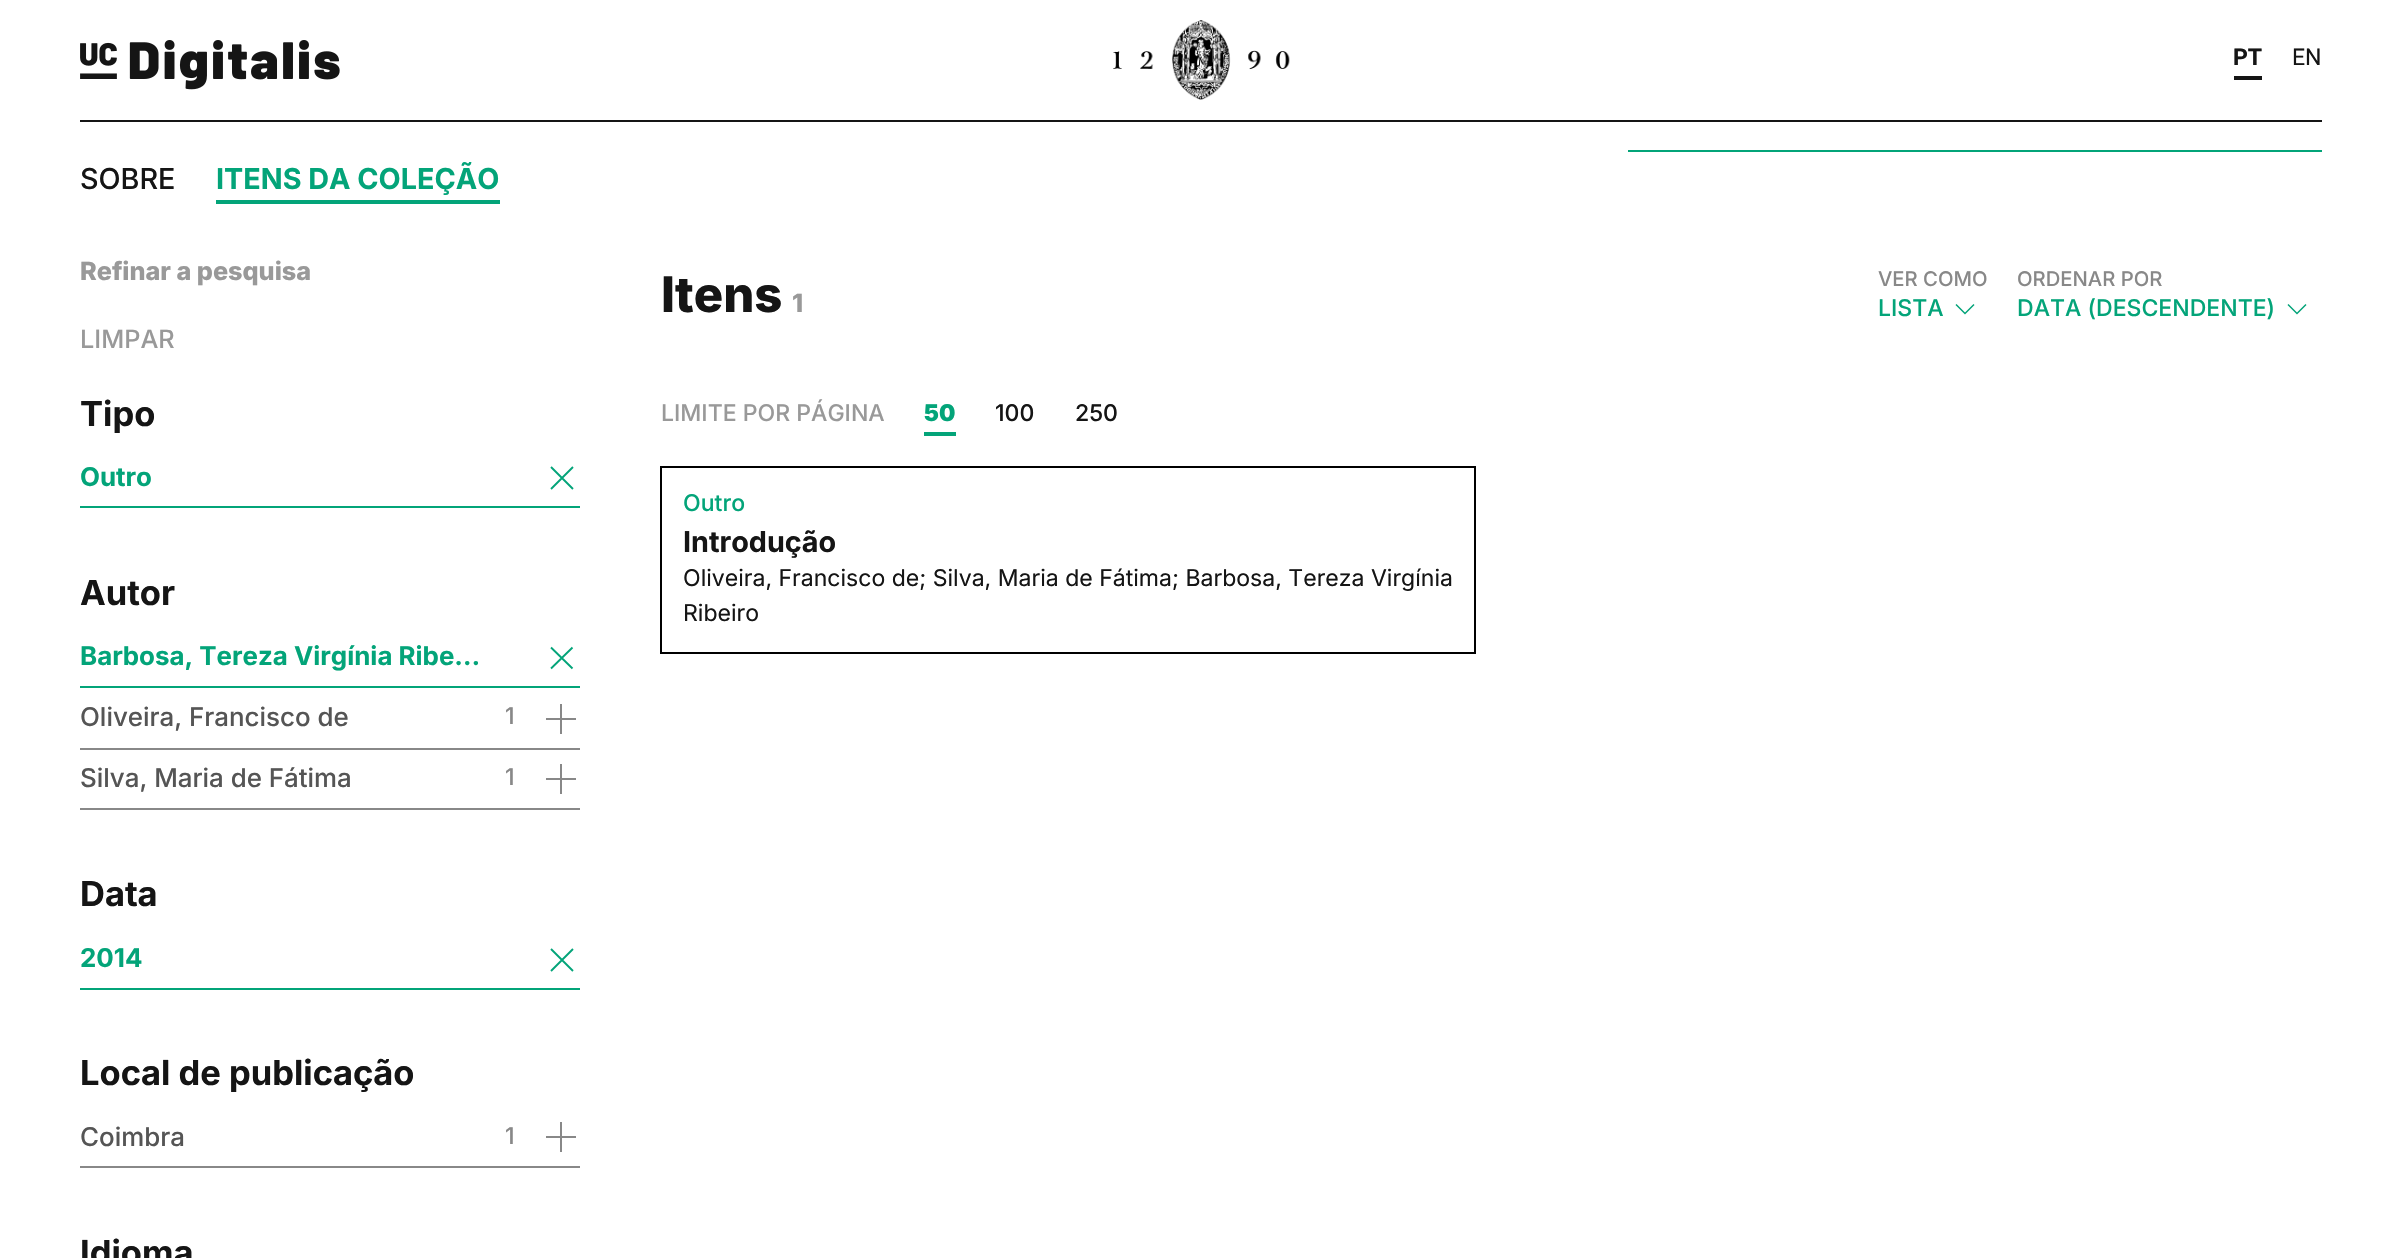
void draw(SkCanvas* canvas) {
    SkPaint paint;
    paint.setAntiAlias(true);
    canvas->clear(0xFFFFFFFF);
    paint.setColor(0xFF151515);
    canvas->drawRect(SkRect::MakeXYWH(80, 120, 2242, 2), paint);
    canvas->drawImageRect(SkImages::DeferredFromEncodedData(SkData::MakeFromFileName("img1.png")), SkRect::MakeXYWH(80, 40, 260, 50), SkSamplingOptions());
    canvas->drawImageRect(SkImages::DeferredFromEncodedData(SkData::MakeFromFileName("img2.png")), SkRect::MakeXYWH(1113, 20, 177, 80), SkSamplingOptions());
    canvas->drawRect(SkRect::MakeXYWH(2234, 76, 28, 4), paint);
    SkFont font1(fontMgr->matchFamilyStyle("Roboto", SkFontStyle::Bold()), 23.05f);
    font1.setSubpixel(true);
    canvas->drawString("PT", 2233, 65, font1, paint);
    SkFont font2(fontMgr->matchFamilyStyle("Roboto", SkFontStyle::Normal()), 23.05f);
    font2.setSubpixel(true);
    canvas->drawString("EN", 2292, 65, font2, paint);
    paint.setColor(0xFF03A479);
    canvas->drawRect(SkRect::MakeXYWH(1628, 150, 694, 2), paint);
    SkFont font3(fontMgr->matchFamilyStyle("Inter", SkFontStyle(500, SkFontStyle::kNormal_Width, SkFontStyle::kUpright_Slant)), 28.75f);
    font3.setSubpixel(true);
    paint.setColor(0xFF151515);
    canvas->drawString("SOBRE", 80, 189, font3, paint);
    paint.setColor(0xFF03A479);
    canvas->drawRect(SkRect::MakeXYWH(216, 200, 284, 4), paint);
    SkFont font4(fontMgr->matchFamilyStyle("Inter", SkFontStyle::Bold()), 28.75f);
    font4.setSubpixel(true);
    canvas->drawString("ITENS DA COLEÇÃO", 216, 189, font4, paint);
    SkFont font5(fontMgr->matchFamilyStyle("Inter", SkFontStyle(800, SkFontStyle::kNormal_Width, SkFontStyle::kUpright_Slant)), 25.25f);
    font5.setSubpixel(true);
    paint.setColor(0xFF999999);
    canvas->drawString("Refinar a pesquisa", 80, 280, font5, paint);
    SkFont font6(fontMgr->matchFamilyStyle("Inter", SkFontStyle(500, SkFontStyle::kNormal_Width, SkFontStyle::kUpright_Slant)), 25.25f);
    font6.setSubpixel(true);
    canvas->drawString("LIMPAR", 80, 348, font6, paint);
    SkFont font7(fontMgr->matchFamilyStyle("Inter", SkFontStyle::Bold()), 34.5f);
    font7.setSubpixel(true);
    paint.setColor(0xFF151515);
    canvas->drawString("Tipo", 80, 426, font7, paint);
    paint.setColor(0xFF03A479);
    canvas->drawRect(SkRect::MakeXYWH(80, 506, 500, 2), paint);
    SkFont font8(fontMgr->matchFamilyStyle("Inter", SkFontStyle::Bold()), 25.9f);
    font8.setSubpixel(true);
    canvas->drawString("Outro", 80, 486, font8, paint);
    paint.setStyle(SkPaint::kStroke_Style);
    paint.setStrokeWidth(1.9f);
    canvas->drawPath(SkPathBuilder().moveTo(573, 489).lineTo(551, 467).moveTo(573, 467).lineTo(551, 489).detach(), paint);
    paint.setStyle(SkPaint::kFill_Style);
    paint.setColor(0xFF151515);
    canvas->drawString("Autor", 80, 605, font7, paint);
    paint.setColor(0xFF03A479);
    canvas->drawRect(SkRect::MakeXYWH(80, 686, 500, 2), paint);
    canvas->drawString("Barbosa, Tereza Virgínia Ribe…", 80, 665, font8, paint);
    paint.setStyle(SkPaint::kStroke_Style);
    canvas->drawPath(SkPathBuilder().moveTo(572.5f, 668.5f).lineTo(551, 647.5f).moveTo(572.5f, 647.5f).lineTo(551, 668.5f).detach(), paint);
    paint.setStyle(SkPaint::kFill_Style);
    paint.setColor(0xFF888888);
    canvas->drawRect(SkRect::MakeXYWH(80, 748, 500, 2), paint);
    SkFont font9(fontMgr->matchFamilyStyle("Inter", SkFontStyle(500, SkFontStyle::kNormal_Width, SkFontStyle::kUpright_Slant)), 25.9f);
    font9.setSubpixel(true);
    paint.setColor(0xFF555555);
    canvas->drawString("Oliveira, Francisco de", 80, 726, font9, paint);
    SkFont font10(fontMgr->matchFamilyStyle("Inter", SkFontStyle(500, SkFontStyle::kNormal_Width, SkFontStyle::kUpright_Slant)), 23.05f);
    font10.setSubpixel(true);
    paint.setColor(0xFF888888);
    canvas->drawString("1", 505, 724, font10, paint);
    canvas->drawRect(SkRect::MakeXYWH(560, 704, 2, 30), paint);
    canvas->drawRect(SkRect::MakeXYWH(546, 718, 30, 2), paint);
    canvas->drawRect(SkRect::MakeXYWH(80, 808, 500, 2), paint);
    paint.setColor(0xFF555555);
    canvas->drawString("Silva, Maria de Fátima", 80, 787, font9, paint);
    paint.setColor(0xFF888888);
    canvas->drawString("1", 505, 785, font10, paint);
    canvas->drawRect(SkRect::MakeXYWH(560, 764, 2, 30), paint);
    canvas->drawRect(SkRect::MakeXYWH(546, 778, 30, 2), paint);
    paint.setColor(0xFF151515);
    canvas->drawString("Data", 80, 906, font7, paint);
    paint.setColor(0xFF03A479);
    canvas->drawRect(SkRect::MakeXYWH(80, 988, 500, 2), paint);
    canvas->drawString("2014", 80, 967, font8, paint);
    paint.setStyle(SkPaint::kStroke_Style);
    canvas->drawPath(SkPathBuilder().moveTo(573, 971).lineTo(551, 949).moveTo(573, 949).lineTo(551, 971).detach(), paint);
    paint.setStyle(SkPaint::kFill_Style);
    paint.setColor(0xFF151515);
    canvas->drawString("Local de publicação", 80, 1085, font7, paint);
    paint.setColor(0xFF888888);
    canvas->drawRect(SkRect::MakeXYWH(80, 1166, 500, 2), paint);
    paint.setColor(0xFF555555);
    canvas->drawString("Coimbra", 80, 1146, font9, paint);
    paint.setColor(0xFF888888);
    canvas->drawString("1", 505, 1144, font10, paint);
    canvas->drawRect(SkRect::MakeXYWH(560, 1122, 2, 30), paint);
    canvas->drawRect(SkRect::MakeXYWH(546, 1136, 30, 2), paint);
    paint.setColor(0xFF151515);
    canvas->drawString("Idioma", 80, 1265, font7, paint);
    SkFont font11(fontMgr->matchFamilyStyle("Inter", SkFontStyle(800, SkFontStyle::kNormal_Width, SkFontStyle::kUpright_Slant)), 49);
    font11.setSubpixel(true);
    canvas->drawString("Itens", 661, 312, font11, paint);
    paint.setColor(0xFF999999);
    canvas->drawString("1", 792, 312, font5, paint);
    SkFont font12(fontMgr->matchFamilyStyle("Inter", SkFontStyle(500, SkFontStyle::kNormal_Width, SkFontStyle::kUpright_Slant)), 20.25f);
    font12.setSubpixel(true);
    paint.setColor(0xFF888888);
    canvas->drawString("VER COMO", 1878, 286, font12, paint);
    paint.setColor(0xFF03A479);
    canvas->drawString("LISTA", 1878, 316, font10, paint);
    paint.setStyle(SkPaint::kStroke_Style);
    paint.setStrokeWidth(1.5f);
    canvas->drawPath(SkPathBuilder().moveTo(1974, 304.5f).lineTo(1965, 313.5f).lineTo(1956, 304.5f).detach(), paint);
    paint.setStyle(SkPaint::kFill_Style);
    paint.setColor(0xFF888888);
    canvas->drawString("ORDENAR POR", 2017, 286, font12, paint);
    paint.setColor(0xFF03A479);
    canvas->drawString("DATA (DESCENDENTE)", 2017, 316, font10, paint);
    paint.setStyle(SkPaint::kStroke_Style);
    canvas->drawPath(SkPathBuilder().moveTo(2306, 304.5f).lineTo(2297, 313.5f).lineTo(2288, 304.5f).detach(), paint);
    paint.setStyle(SkPaint::kFill_Style);
    paint.setColor(0xFF999999);
    canvas->drawString("LIMITE POR PÁGINA", 661, 421, font10, paint);
    paint.setColor(0xFF03A479);
    canvas->drawRect(SkRect::MakeXYWH(924, 432, 32, 4), paint);
    SkFont font13(fontMgr->matchFamilyStyle("Inter", SkFontStyle(900, SkFontStyle::kNormal_Width, SkFontStyle::kUpright_Slant)), 23.05f);
    font13.setSubpixel(true);
    canvas->drawString("50", 924, 421, font13, paint);
    paint.setColor(0xFF151515);
    canvas->drawString("100", 995, 421, font10, paint);
    canvas->drawString("250", 1075, 421, font10, paint);
    paint.setStyle(SkPaint::kStroke_Style);
    paint.setStrokeWidth(2);
    paint.setColor(0xFF000000);
    canvas->drawRect(SkRect::MakeXYWH(661, 467, 814, 186), paint);
    paint.setStyle(SkPaint::kFill_Style);
    paint.setColor(0xFF03A479);
    canvas->drawString("Outro", 683, 511, font10, paint);
    paint.setColor(0xFF151515);
    canvas->drawString("Introdução", 683, 552, font4, paint);
    SkFont font14(fontMgr->matchFamilyStyle("Inter", SkFontStyle::Normal()), 23.05f);
    font14.setSubpixel(true);
    canvas->drawString("Oliveira, Francisco de; Silva, Maria de Fátima; Barbosa, Tereza Virgínia", 683, 586, font14, paint);
    canvas->drawString("Ribeiro", 683, 621, font14, paint);
}
